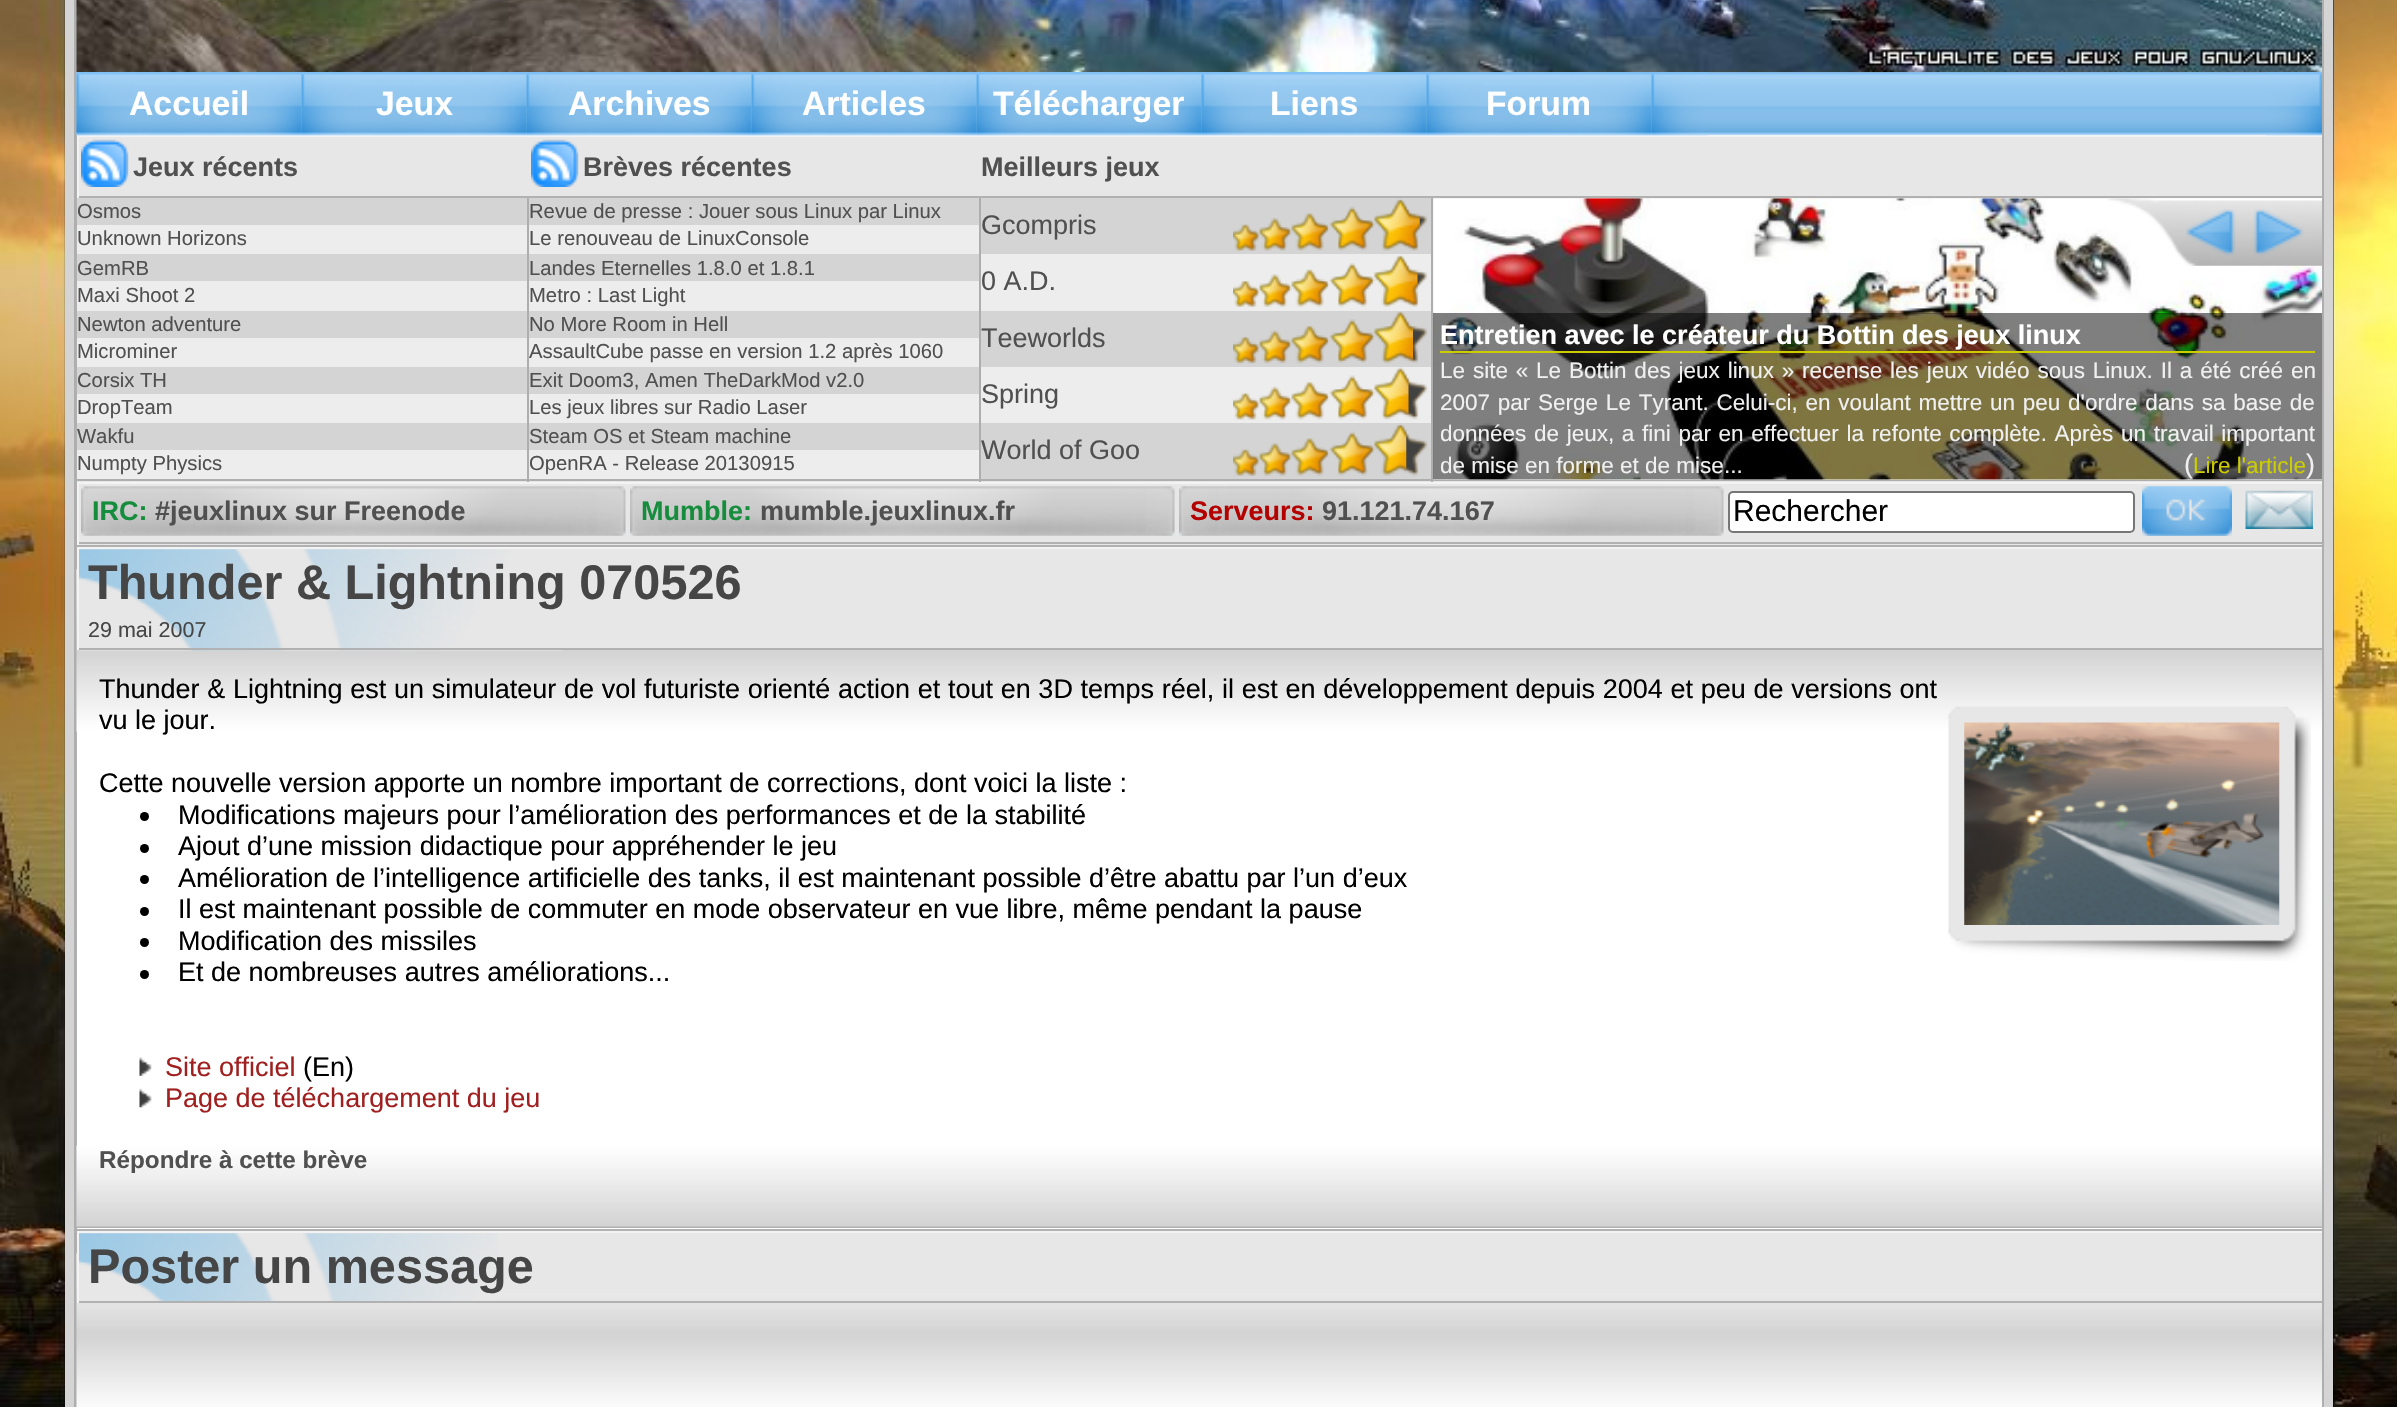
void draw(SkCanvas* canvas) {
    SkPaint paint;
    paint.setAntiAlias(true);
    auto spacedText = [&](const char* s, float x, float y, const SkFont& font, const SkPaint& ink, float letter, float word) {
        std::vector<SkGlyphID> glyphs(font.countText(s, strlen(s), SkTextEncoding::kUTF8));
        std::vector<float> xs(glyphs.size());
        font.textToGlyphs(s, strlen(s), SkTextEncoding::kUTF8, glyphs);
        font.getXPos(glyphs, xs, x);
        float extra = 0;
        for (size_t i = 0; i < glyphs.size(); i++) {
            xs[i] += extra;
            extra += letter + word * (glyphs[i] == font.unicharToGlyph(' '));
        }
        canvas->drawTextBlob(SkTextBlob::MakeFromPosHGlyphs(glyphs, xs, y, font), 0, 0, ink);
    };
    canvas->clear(0xFFFFFFFF);
    canvas->drawImageRect(SkImages::DeferredFromEncodedData(SkData::MakeFromFileName("img1.png")), SkRect::MakeXYWH(0, 0, 2397, 1407), SkSamplingOptions());
    paint.setColor(0xFFB1B1B1);
    canvas->drawRect(SkRect::MakeXYWH(76, 0, 2246, 1407), paint);
    paint.setColor(0xFFD4D4D4);
    canvas->drawRect(SkRect::MakeXYWH(2324, 0, 9, 1407), paint);
    canvas->drawRect(SkRect::MakeXYWH(65, 0, 9, 1407), paint);
    paint.setColor(0xFFAEAEAE);
    canvas->drawRect(SkRect::MakeXYWH(2322, 0, 2, 1407), paint);
    canvas->drawRect(SkRect::MakeXYWH(74, 0, 2, 1407), paint);
    canvas->drawImageRect(SkImages::DeferredFromEncodedData(SkData::MakeFromFileName("img2.png")), SkRect::MakeXYWH(76, 0, 2246, 73), SkSamplingOptions());
    canvas->drawImageRect(SkImages::DeferredFromEncodedData(SkData::MakeFromFileName("img3.png")), SkRect::MakeXYWH(76, 72, 2246, 64), SkSamplingOptions());
    paint.setColor(0xFFF3F3F3);
    canvas->drawRect(SkRect::MakeXYWH(77, 135, 2245, 2), paint);
    canvas->drawRect(SkRect::MakeXYWH(77, 135, 2, 63), paint);
    canvas->drawImageRect(SkImages::DeferredFromEncodedData(SkData::MakeFromFileName("img4.png")), SkRect::MakeXYWH(76, 72, 226, 64), SkSamplingOptions());
    SkFont font1(fontMgr->matchFamilyStyle("Liberation Sans", SkFontStyle::Bold()), 33.75f);
    font1.setSubpixel(true);
    paint.setColor(0xFFFFFFFF);
    canvas->drawString("Accueil", 129, 115, font1, paint);
    canvas->drawImageRect(SkImages::DeferredFromEncodedData(SkData::MakeFromFileName("img5.png")), SkRect::MakeXYWH(301, 72, 226, 64), SkSamplingOptions());
    canvas->drawString("Jeux", 376, 115, font1, paint);
    canvas->drawImageRect(SkImages::DeferredFromEncodedData(SkData::MakeFromFileName("img6.png")), SkRect::MakeXYWH(526, 72, 226, 64), SkSamplingOptions());
    canvas->drawString("Archives", 568, 115, font1, paint);
    canvas->drawImageRect(SkImages::DeferredFromEncodedData(SkData::MakeFromFileName("img7.png")), SkRect::MakeXYWH(751, 72, 226, 64), SkSamplingOptions());
    canvas->drawString("Articles", 802, 115, font1, paint);
    canvas->drawImageRect(SkImages::DeferredFromEncodedData(SkData::MakeFromFileName("img8.png")), SkRect::MakeXYWH(976, 72, 226, 64), SkSamplingOptions());
    canvas->drawString("Télécharger", 993, 115, font1, paint);
    canvas->drawImageRect(SkImages::DeferredFromEncodedData(SkData::MakeFromFileName("img9.png")), SkRect::MakeXYWH(1201, 72, 226, 64), SkSamplingOptions());
    canvas->drawString("Liens", 1270, 115, font1, paint);
    canvas->drawImageRect(SkImages::DeferredFromEncodedData(SkData::MakeFromFileName("img10.png")), SkRect::MakeXYWH(1426, 72, 226, 64), SkSamplingOptions());
    canvas->drawString("Forum", 1486, 115, font1, paint);
    canvas->drawImageRect(SkImages::DeferredFromEncodedData(SkData::MakeFromFileName("img11.png")), SkRect::MakeXYWH(1651, 72, 57, 64), SkSamplingOptions());
    canvas->drawImageRect(SkImages::DeferredFromEncodedData(SkData::MakeFromFileName("img12.png")), SkRect::MakeXYWH(2265, 72, 57, 64), SkSamplingOptions());
    paint.setColor(0xFFE7E7E7);
    canvas->drawRect(SkRect::MakeXYWH(79, 137, 2243, 59), paint);
    canvas->drawImageRect(SkImages::DeferredFromEncodedData(SkData::MakeFromFileName("img13.png")), SkRect::MakeXYWH(81, 139, 48, 48), SkSamplingOptions());
    SkFont font2(fontMgr->matchFamilyStyle("Liberation Sans", SkFontStyle::Bold()), 27);
    font2.setSubpixel(true);
    paint.setColor(0xFF505050);
    canvas->drawString("Jeux récents", 133, 176, font2, paint);
    canvas->drawImageRect(SkImages::DeferredFromEncodedData(SkData::MakeFromFileName("img14.png")), SkRect::MakeXYWH(531, 139, 48, 48), SkSamplingOptions());
    canvas->drawString("Brèves récentes", 583, 176, font2, paint);
    canvas->drawString("Meilleurs jeux", 981, 176, font2, paint);
    paint.setColor(0xFFE7E7E7);
    canvas->drawRect(SkRect::MakeXYWH(77, 198, 2245, 284), paint);
    paint.setColor(0xFFAEAEAE);
    canvas->drawRect(SkRect::MakeXYWH(77, 479, 2245, 2), paint);
    canvas->drawRect(SkRect::MakeXYWH(527, 198, 2, 284), paint);
    paint.setColor(0xFFD4D4D4);
    canvas->drawRect(SkRect::MakeXYWH(77, 198, 450, 27), paint);
    SkFont font3(fontMgr->matchFamilyStyle("Liberation Sans", SkFontStyle::Normal()), 20.25f);
    font3.setSubpixel(true);
    paint.setColor(0xFF505050);
    canvas->drawString("Osmos", 77, 218, font3, paint);
    paint.setColor(0xFFEDEDED);
    canvas->drawRect(SkRect::MakeXYWH(77, 225, 450, 29), paint);
    paint.setColor(0xFF505050);
    canvas->drawString("Unknown Horizons", 77, 245, font3, paint);
    paint.setColor(0xFFD4D4D4);
    canvas->drawRect(SkRect::MakeXYWH(77, 254, 450, 27), paint);
    paint.setColor(0xFF505050);
    canvas->drawString("GemRB", 77, 275, font3, paint);
    paint.setColor(0xFFEDEDED);
    canvas->drawRect(SkRect::MakeXYWH(77, 281, 450, 30), paint);
    paint.setColor(0xFF505050);
    canvas->drawString("Maxi Shoot 2", 77, 302, font3, paint);
    paint.setColor(0xFFD4D4D4);
    canvas->drawRect(SkRect::MakeXYWH(77, 311, 450, 27), paint);
    paint.setColor(0xFF505050);
    canvas->drawString("Newton adventure", 77, 331, font3, paint);
    paint.setColor(0xFFEDEDED);
    canvas->drawRect(SkRect::MakeXYWH(77, 338, 450, 29), paint);
    paint.setColor(0xFF505050);
    canvas->drawString("Microminer", 77, 358, font3, paint);
    paint.setColor(0xFFD4D4D4);
    canvas->drawRect(SkRect::MakeXYWH(77, 367, 450, 27), paint);
    paint.setColor(0xFF505050);
    canvas->drawString("Corsix TH", 77, 387, font3, paint);
    paint.setColor(0xFFEDEDED);
    canvas->drawRect(SkRect::MakeXYWH(77, 394, 450, 29), paint);
    paint.setColor(0xFF505050);
    canvas->drawString("DropTeam", 77, 414, font3, paint);
    paint.setColor(0xFFD4D4D4);
    canvas->drawRect(SkRect::MakeXYWH(77, 423, 450, 27), paint);
    paint.setColor(0xFF505050);
    canvas->drawString("Wakfu", 77, 443, font3, paint);
    paint.setColor(0xFFEDEDED);
    canvas->drawRect(SkRect::MakeXYWH(77, 450, 450, 29), paint);
    paint.setColor(0xFF505050);
    canvas->drawString("Numpty Physics", 77, 470, font3, paint);
    paint.setColor(0xFFAEAEAE);
    canvas->drawRect(SkRect::MakeXYWH(979, 198, 2, 284), paint);
    paint.setColor(0xFFD4D4D4);
    canvas->drawRect(SkRect::MakeXYWH(529, 198, 450, 27), paint);
    paint.setColor(0xFF505050);
    canvas->drawString("Revue de presse : Jouer sous Linux par Linux", 529, 218, font3, paint);
    paint.setColor(0xFFEDEDED);
    canvas->drawRect(SkRect::MakeXYWH(529, 225, 450, 29), paint);
    paint.setColor(0xFF505050);
    canvas->drawString("Le renouveau de LinuxConsole", 529, 245, font3, paint);
    paint.setColor(0xFFD4D4D4);
    canvas->drawRect(SkRect::MakeXYWH(529, 254, 450, 27), paint);
    paint.setColor(0xFF505050);
    canvas->drawString("Landes Eternelles 1.8.0 et 1.8.1", 529, 275, font3, paint);
    paint.setColor(0xFFEDEDED);
    canvas->drawRect(SkRect::MakeXYWH(529, 281, 450, 30), paint);
    paint.setColor(0xFF505050);
    canvas->drawString("Metro : Last Light", 529, 302, font3, paint);
    paint.setColor(0xFFD4D4D4);
    canvas->drawRect(SkRect::MakeXYWH(529, 311, 450, 27), paint);
    paint.setColor(0xFF505050);
    canvas->drawString("No More Room in Hell", 529, 331, font3, paint);
    paint.setColor(0xFFEDEDED);
    canvas->drawRect(SkRect::MakeXYWH(529, 338, 450, 29), paint);
    paint.setColor(0xFF505050);
    canvas->drawString("AssaultCube passe en version 1.2 après 1060", 529, 358, font3, paint);
    paint.setColor(0xFFD4D4D4);
    canvas->drawRect(SkRect::MakeXYWH(529, 367, 450, 27), paint);
    paint.setColor(0xFF505050);
    canvas->drawString("Exit Doom3, Amen TheDarkMod v2.0", 529, 387, font3, paint);
    paint.setColor(0xFFEDEDED);
    canvas->drawRect(SkRect::MakeXYWH(529, 394, 450, 29), paint);
    paint.setColor(0xFF505050);
    canvas->drawString("Les jeux libres sur Radio Laser", 529, 414, font3, paint);
    paint.setColor(0xFFD4D4D4);
    canvas->drawRect(SkRect::MakeXYWH(529, 423, 450, 27), paint);
    paint.setColor(0xFF505050);
    canvas->drawString("Steam OS et Steam machine", 529, 443, font3, paint);
    paint.setColor(0xFFEDEDED);
    canvas->drawRect(SkRect::MakeXYWH(529, 450, 450, 29), paint);
    paint.setColor(0xFF505050);
    canvas->drawString("OpenRA - Release 20130915", 529, 470, font3, paint);
    paint.setColor(0xFFAEAEAE);
    canvas->drawRect(SkRect::MakeXYWH(1431, 198, 2, 284), paint);
    paint.setColor(0xFFD4D4D4);
    canvas->drawRect(SkRect::MakeXYWH(981, 198, 450, 56), paint);
    SkFont font4(fontMgr->matchFamilyStyle("Liberation Sans", SkFontStyle::Normal()), 27);
    font4.setSubpixel(true);
    paint.setColor(0xFF505050);
    canvas->drawString("Gcompris", 981, 234, font4, paint);
    canvas->drawImageRect(SkImages::DeferredFromEncodedData(SkData::MakeFromFileName("img15.png")), SkRect::MakeXYWH(1233, 198, 195, 53), SkSamplingOptions());
    canvas->drawImageRect(SkImages::DeferredFromEncodedData(SkData::MakeFromFileName("img16.png")), SkRect::MakeXYWH(1233, 200, 187, 51), SkSamplingOptions());
    paint.setColor(0xFFEDEDED);
    canvas->drawRect(SkRect::MakeXYWH(981, 254, 450, 57), paint);
    paint.setColor(0xFF505050);
    canvas->drawString("0 A.D.", 981, 290, font4, paint);
    canvas->drawImageRect(SkImages::DeferredFromEncodedData(SkData::MakeFromFileName("img17.png")), SkRect::MakeXYWH(1233, 255, 195, 52), SkSamplingOptions());
    canvas->drawImageRect(SkImages::DeferredFromEncodedData(SkData::MakeFromFileName("img18.png")), SkRect::MakeXYWH(1233, 256, 185, 51), SkSamplingOptions());
    paint.setColor(0xFFD4D4D4);
    canvas->drawRect(SkRect::MakeXYWH(981, 311, 450, 56), paint);
    paint.setColor(0xFF505050);
    canvas->drawString("Teeworlds", 981, 347, font4, paint);
    canvas->drawImageRect(SkImages::DeferredFromEncodedData(SkData::MakeFromFileName("img19.png")), SkRect::MakeXYWH(1233, 311, 195, 53), SkSamplingOptions());
    canvas->drawImageRect(SkImages::DeferredFromEncodedData(SkData::MakeFromFileName("img20.png")), SkRect::MakeXYWH(1233, 312, 180, 52), SkSamplingOptions());
    paint.setColor(0xFFEDEDED);
    canvas->drawRect(SkRect::MakeXYWH(981, 367, 450, 56), paint);
    paint.setColor(0xFF505050);
    canvas->drawString("Spring", 981, 403, font4, paint);
    canvas->drawImageRect(SkImages::DeferredFromEncodedData(SkData::MakeFromFileName("img21.png")), SkRect::MakeXYWH(1233, 367, 195, 53), SkSamplingOptions());
    canvas->drawImageRect(SkImages::DeferredFromEncodedData(SkData::MakeFromFileName("img22.png")), SkRect::MakeXYWH(1233, 368, 176, 52), SkSamplingOptions());
    paint.setColor(0xFFD4D4D4);
    canvas->drawRect(SkRect::MakeXYWH(981, 423, 450, 56), paint);
    paint.setColor(0xFF505050);
    canvas->drawString("World of Goo", 981, 459, font4, paint);
    canvas->drawImageRect(SkImages::DeferredFromEncodedData(SkData::MakeFromFileName("img15.png")), SkRect::MakeXYWH(1233, 423, 195, 53), SkSamplingOptions());
    canvas->drawImageRect(SkImages::DeferredFromEncodedData(SkData::MakeFromFileName("img23.png")), SkRect::MakeXYWH(1233, 425, 174, 51), SkSamplingOptions());
    canvas->drawImageRect(SkImages::DeferredFromEncodedData(SkData::MakeFromFileName("img27.png")), SkRect::MakeXYWH(1433, 198, 889, 282), SkSamplingOptions());
    canvas->drawImageRect(SkImages::DeferredFromEncodedData(SkData::MakeFromFileName("img24.png")), SkRect::MakeXYWH(2108, 198, 214, 68), SkSamplingOptions());
    canvas->drawImageRect(SkImages::DeferredFromEncodedData(SkData::MakeFromFileName("img25.png")), SkRect::MakeXYWH(2185, 209, 51, 47), SkSamplingOptions());
    canvas->drawImageRect(SkImages::DeferredFromEncodedData(SkData::MakeFromFileName("img26.png")), SkRect::MakeXYWH(2253, 209, 51, 47), SkSamplingOptions());
    paint.setColor(0x80000000);
    canvas->drawRect(SkRect::MakeXYWH(1433, 313, 889, 166), paint);
    paint.setColor(0xFFCCCC00);
    canvas->drawRect(SkRect::MakeXYWH(1440, 351, 875, 2), paint);
    paint.setColor(0xFFFFFFFF);
    canvas->drawString("Entretien avec le créateur du Bottin des jeux linux", 1440, 344, font2, paint);
    SkFont font5(fontMgr->matchFamilyStyle("Liberation Sans", SkFontStyle::Normal()), 22.5f);
    font5.setSubpixel(true);
    paint.setColor(0xFFF0F0F0);
    spacedText("Le site « Le Bottin des jeux linux » recense les jeux vidéo sous Linux. Il a été créé en", 1440, 378, font5, paint, 0, 1.6f);
    spacedText("2007 par Serge Le Tyrant. Celui-ci, en voulant mettre un peu d'ordre dans sa base de", 1440, 410, font5, paint, 0, 1.5f);
    spacedText("données de jeux, a fini par en effectuer la refonte complète. Après un travail important", 1440, 441, font5, paint, 0, 1.4f);
    canvas->drawString("de mise en forme et de mise...", 1440, 473, font5, paint);
    canvas->drawString("(", 2184, 473, font4, paint);
    paint.setColor(0xFFCCCC00);
    canvas->drawString("Lire l'article", 2193, 473, font5, paint);
    paint.setColor(0xFFF0F0F0);
    canvas->drawString(")", 2306, 473, font4, paint);
    paint.setColor(0xFFE7E7E7);
    canvas->drawRect(SkRect::MakeXYWH(79, 484, 2243, 61), paint);
    paint.setColor(0xFFF3F3F3);
    canvas->drawRect(SkRect::MakeXYWH(77, 482, 2245, 2), paint);
    paint.setColor(0xFFB1B1B1);
    canvas->drawRect(SkRect::MakeXYWH(77, 542, 2245, 2), paint);
    paint.setColor(0xFFF3F3F3);
    canvas->drawRect(SkRect::MakeXYWH(77, 482, 2, 63), paint);
    canvas->drawImageRect(SkImages::DeferredFromEncodedData(SkData::MakeFromFileName("img28.png")), SkRect::MakeXYWH(81, 486, 545, 50), SkSamplingOptions());
    paint.setColor(0xFF168C3D);
    canvas->drawString("IRC:", 92, 520, font2, paint);
    paint.setColor(0xFF505050);
    canvas->drawString("#jeuxlinux sur Freenode", 155, 520, font2, paint);
    canvas->drawImageRect(SkImages::DeferredFromEncodedData(SkData::MakeFromFileName("img29.png")), SkRect::MakeXYWH(630, 486, 545, 50), SkSamplingOptions());
    paint.setColor(0xFF168C3D);
    canvas->drawString("Mumble:", 641, 520, font2, paint);
    paint.setColor(0xFF505050);
    canvas->drawString("mumble.jeuxlinux.fr", 760, 520, font2, paint);
    canvas->drawImageRect(SkImages::DeferredFromEncodedData(SkData::MakeFromFileName("img30.png")), SkRect::MakeXYWH(1179, 486, 545, 50), SkSamplingOptions());
    paint.setColor(0xFFB50000);
    canvas->drawString("Serveurs:", 1190, 520, font2, paint);
    paint.setColor(0xFF505050);
    canvas->drawString("91.121.74.167", 1322, 520, font2, paint);
    paint.setColor(0xFFFFFFFF);
    canvas->drawRoundRect(SkRect::MakeXYWH(1729, 492, 405, 40), 4, 4, paint);
    paint.setStyle(SkPaint::kStroke_Style);
    paint.setStrokeWidth(2);
    paint.setColor(0xFF767676);
    canvas->drawRoundRect(SkRect::MakeXYWH(1729, 492, 405, 40), 4, 4, paint);
    SkFont font6(fontMgr->matchFamilyStyle("Liberation Sans", SkFontStyle::Normal()), 30);
    font6.setSubpixel(true);
    paint.setStyle(SkPaint::kFill_Style);
    paint.setColor(0xFF000000);
    canvas->drawString("Rechercher", 1733, 521, font6, paint);
    canvas->drawImageRect(SkImages::DeferredFromEncodedData(SkData::MakeFromFileName("img31.png")), SkRect::MakeXYWH(2142, 486, 90, 50), SkSamplingOptions());
    canvas->drawImageRect(SkImages::DeferredFromEncodedData(SkData::MakeFromFileName("img32.png")), SkRect::MakeXYWH(2245, 490, 68, 39), SkSamplingOptions());
    paint.setColor(0xFFFFFFFF);
    canvas->drawRect(SkRect::MakeXYWH(77, 731, 2245, 498), paint);
    canvas->drawImageRect(SkImages::DeferredFromEncodedData(SkData::MakeFromFileName("img33.png")), SkRect::MakeXYWH(76, 569, 2246, 163), SkSamplingOptions());
    paint.setColor(0xFFB1B1B1);
    canvas->drawRect(SkRect::MakeXYWH(77, 1226, 2245, 2), paint);
    paint.setColor(0xFFE7E7E7);
    canvas->drawRect(SkRect::MakeXYWH(79, 549, 2243, 99), paint);
    canvas->drawImageRect(SkImages::DeferredFromEncodedData(SkData::MakeFromFileName("img34.png")), SkRect::MakeXYWH(78, 549, 485, 102), SkSamplingOptions());
    paint.setColor(0xFFF3F3F3);
    canvas->drawRect(SkRect::MakeXYWH(77, 547, 2245, 2), paint);
    paint.setColor(0xFFB1B1B1);
    canvas->drawRect(SkRect::MakeXYWH(77, 648, 2245, 2), paint);
    paint.setColor(0xFFF3F3F3);
    canvas->drawRect(SkRect::MakeXYWH(77, 547, 2, 103), paint);
    SkFont font7(fontMgr->matchFamilyStyle("Liberation Sans", SkFontStyle::Bold()), 48.6f);
    font7.setSubpixel(true);
    paint.setColor(0xFF464646);
    canvas->drawString("Thunder & Lightning 070526", 88, 599, font7, paint);
    SkFont font8(fontMgr->matchFamilyStyle("Liberation Sans", SkFontStyle::Normal()), 21.5f);
    font8.setSubpixel(true);
    canvas->drawString("29 mai 2007", 88, 637, font8, paint);
    paint.setColor(0xFF000000);
    spacedText("Thunder & Lightning est un simulateur de vol futuriste orienté action et tout en 3D temps réel, il est en développement depuis 2004 et peu de versions ont", 99, 698, font4, paint, 0, 0.2f);
    canvas->drawString("vu le jour.", 99, 729, font4, paint);
    canvas->drawString("Cette nouvelle version apporte un nombre important de corrections, dont voici la liste :", 99, 792, font4, paint);
    canvas->drawCircle(144.5f, 816.5f, 4.5f, paint);
    canvas->drawString("Modifications majeurs pour l’amélioration des performances et de la stabilité", 178, 824, font4, paint);
    canvas->drawCircle(144.5f, 848.5f, 4.5f, paint);
    canvas->drawString("Ajout d’une mission didactique pour appréhender le jeu", 178, 855, font4, paint);
    canvas->drawCircle(144.5f, 879.5f, 4.5f, paint);
    canvas->drawString("Amélioration de l’intelligence artificielle des tanks, il est maintenant possible d’être abattu par l’un d’eux", 178, 887, font4, paint);
    canvas->drawCircle(144.5f, 911.5f, 4.5f, paint);
    canvas->drawString("Il est maintenant possible de commuter en mode observateur en vue libre, même pendant la pause", 178, 918, font4, paint);
    canvas->drawCircle(144.5f, 942.5f, 4.5f, paint);
    canvas->drawString("Modification des missiles", 178, 950, font4, paint);
    canvas->drawCircle(144.5f, 974.5f, 4.5f, paint);
    canvas->drawString("Et de nombreuses autres améliorations...", 178, 981, font4, paint);
    canvas->drawImageRect(SkImages::DeferredFromEncodedData(SkData::MakeFromFileName("img35.png")), SkRect::MakeXYWH(139, 1057, 13, 19), SkSamplingOptions());
    paint.setColor(0xFFA02020);
    canvas->drawString("Site officiel", 165, 1076, font4, paint);
    paint.setColor(0xFF000000);
    canvas->drawString("(En)", 303, 1076, font4, paint);
    canvas->drawImageRect(SkImages::DeferredFromEncodedData(SkData::MakeFromFileName("img36.png")), SkRect::MakeXYWH(139, 1088, 13, 20), SkSamplingOptions());
    paint.setColor(0xFFA02020);
    canvas->drawString("Page de téléchargement du jeu", 165, 1107, font4, paint);
    canvas->drawImageRect(SkImages::DeferredFromEncodedData(SkData::MakeFromFileName("img37.png")), SkRect::MakeXYWH(1948, 706, 363, 255), SkSamplingOptions());
    canvas->drawImageRect(SkImages::DeferredFromEncodedData(SkData::MakeFromFileName("img38.png")), SkRect::MakeXYWH(1964, 722, 316, 203), SkSamplingOptions());
    canvas->drawImageRect(SkImages::DeferredFromEncodedData(SkData::MakeFromFileName("img39.png")), SkRect::MakeXYWH(76, 1145, 2246, 82), SkSamplingOptions());
    SkFont font9(fontMgr->matchFamilyStyle("Liberation Sans", SkFontStyle::Bold()), 24.25f);
    font9.setSubpixel(true);
    paint.setColor(0xFF505050);
    canvas->drawString("Répondre à cette brève", 99, 1168, font9, paint);
    canvas->drawImageRect(SkImages::DeferredFromEncodedData(SkData::MakeFromFileName("img40.png")), SkRect::MakeXYWH(76, 1253, 2246, 154), SkSamplingOptions());
    paint.setColor(0xFFE7E7E7);
    canvas->drawRect(SkRect::MakeXYWH(79, 1233, 2243, 60), paint);
    canvas->drawImageRect(SkImages::DeferredFromEncodedData(SkData::MakeFromFileName("img41.png")), SkRect::MakeXYWH(79, 1233, 419, 68), SkSamplingOptions());
    paint.setColor(0xFFF3F3F3);
    canvas->drawRect(SkRect::MakeXYWH(77, 1231, 2245, 2), paint);
    paint.setColor(0xFFB1B1B1);
    canvas->drawRect(SkRect::MakeXYWH(77, 1301, 2245, 2), paint);
    paint.setColor(0xFFF3F3F3);
    canvas->drawRect(SkRect::MakeXYWH(77, 1231, 2, 72), paint);
    paint.setColor(0xFF464646);
    canvas->drawString("Poster un message", 88, 1283, font7, paint);
}
